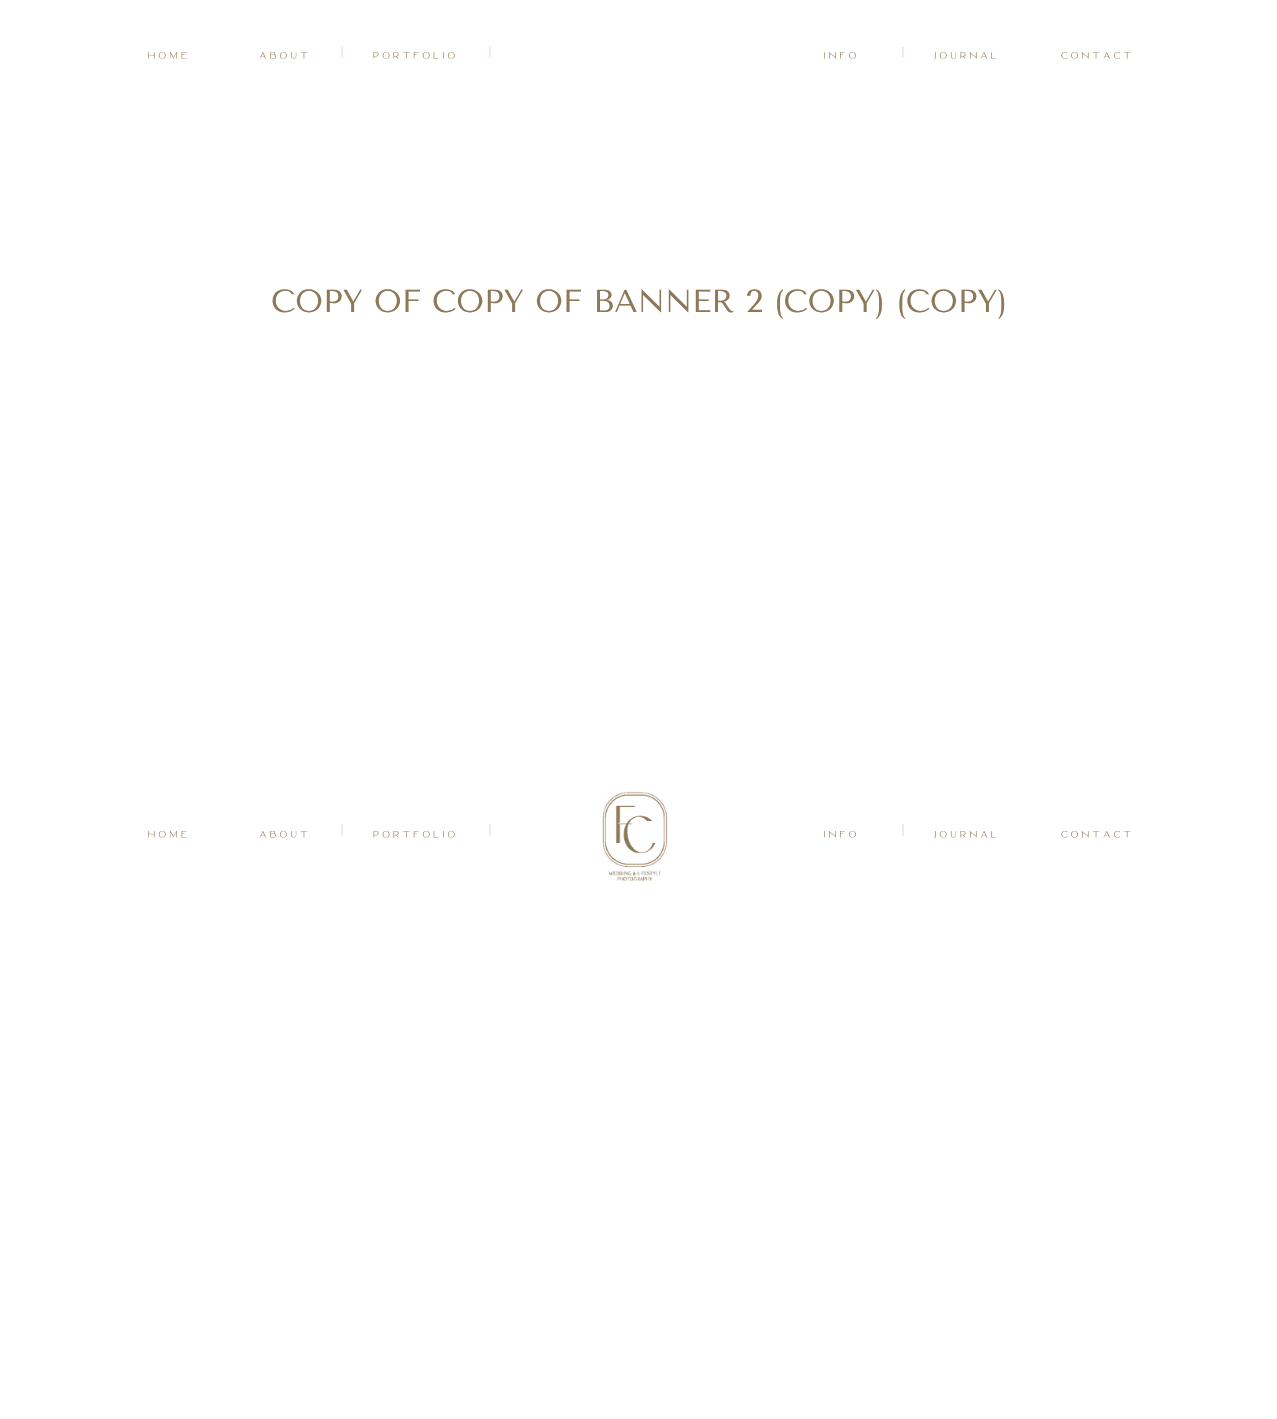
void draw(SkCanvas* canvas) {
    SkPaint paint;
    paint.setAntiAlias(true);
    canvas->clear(0xFFFFFFFF);
    canvas->drawImageRect(SkImages::DeferredFromEncodedData(SkData::MakeFromFileName("img1.png")), SkRect::MakeXYWH(148, 52, 39, 7), SkSamplingOptions());
    canvas->drawImageRect(SkImages::DeferredFromEncodedData(SkData::MakeFromFileName("img2.png")), SkRect::MakeXYWH(259, 52, 49, 7), SkSamplingOptions());
    paint.setColor(0xFFF6E8E0);
    canvas->drawRect(SkRect::MakeXYWH(341, 47, 2, 10), paint);
    canvas->drawImageRect(SkImages::DeferredFromEncodedData(SkData::MakeFromFileName("img3.png")), SkRect::MakeXYWH(373, 52, 82, 7), SkSamplingOptions());
    canvas->drawRect(SkRect::MakeXYWH(489, 47, 2, 10), paint);
    canvas->drawImageRect(SkImages::DeferredFromEncodedData(SkData::MakeFromFileName("img4.png")), SkRect::MakeXYWH(824, 52, 32, 7), SkSamplingOptions());
    canvas->drawRect(SkRect::MakeXYWH(902, 47, 2, 10), paint);
    canvas->drawImageRect(SkImages::DeferredFromEncodedData(SkData::MakeFromFileName("img5.png")), SkRect::MakeXYWH(933, 52, 64, 8), SkSamplingOptions());
    canvas->drawImageRect(SkImages::DeferredFromEncodedData(SkData::MakeFromFileName("img6.png")), SkRect::MakeXYWH(1061, 52, 70, 7), SkSamplingOptions());
    SkFont font1(fontMgr->matchFamilyStyle("Tenor Sans", SkFontStyle::Normal()), 31.95f);
    font1.setSubpixel(true);
    paint.setColor(0xFF8D7857);
    canvas->drawString("COPY OF COPY OF BANNER 2 (COPY) (COPY)", 271, 312, font1, paint);
    canvas->drawImageRect(SkImages::DeferredFromEncodedData(SkData::MakeFromFileName("img7.png")), SkRect::MakeXYWH(148, 830, 39, 8), SkSamplingOptions());
    canvas->drawImageRect(SkImages::DeferredFromEncodedData(SkData::MakeFromFileName("img8.png")), SkRect::MakeXYWH(259, 830, 49, 8), SkSamplingOptions());
    paint.setColor(0xFFF6E8E0);
    canvas->drawRect(SkRect::MakeXYWH(341, 824, 2, 12), paint);
    canvas->drawImageRect(SkImages::DeferredFromEncodedData(SkData::MakeFromFileName("img9.png")), SkRect::MakeXYWH(373, 830, 82, 8), SkSamplingOptions());
    canvas->drawRect(SkRect::MakeXYWH(489, 824, 2, 12), paint);
    canvas->drawImageRect(SkImages::DeferredFromEncodedData(SkData::MakeFromFileName("img10.png")), SkRect::MakeXYWH(602, 791, 66, 90), SkSamplingOptions());
    canvas->drawImageRect(SkImages::DeferredFromEncodedData(SkData::MakeFromFileName("img11.png")), SkRect::MakeXYWH(824, 830, 32, 8), SkSamplingOptions());
    canvas->drawRect(SkRect::MakeXYWH(902, 824, 2, 12), paint);
    canvas->drawImageRect(SkImages::DeferredFromEncodedData(SkData::MakeFromFileName("img12.png")), SkRect::MakeXYWH(933, 830, 64, 9), SkSamplingOptions());
    canvas->drawImageRect(SkImages::DeferredFromEncodedData(SkData::MakeFromFileName("img13.png")), SkRect::MakeXYWH(1061, 830, 70, 8), SkSamplingOptions());
}
